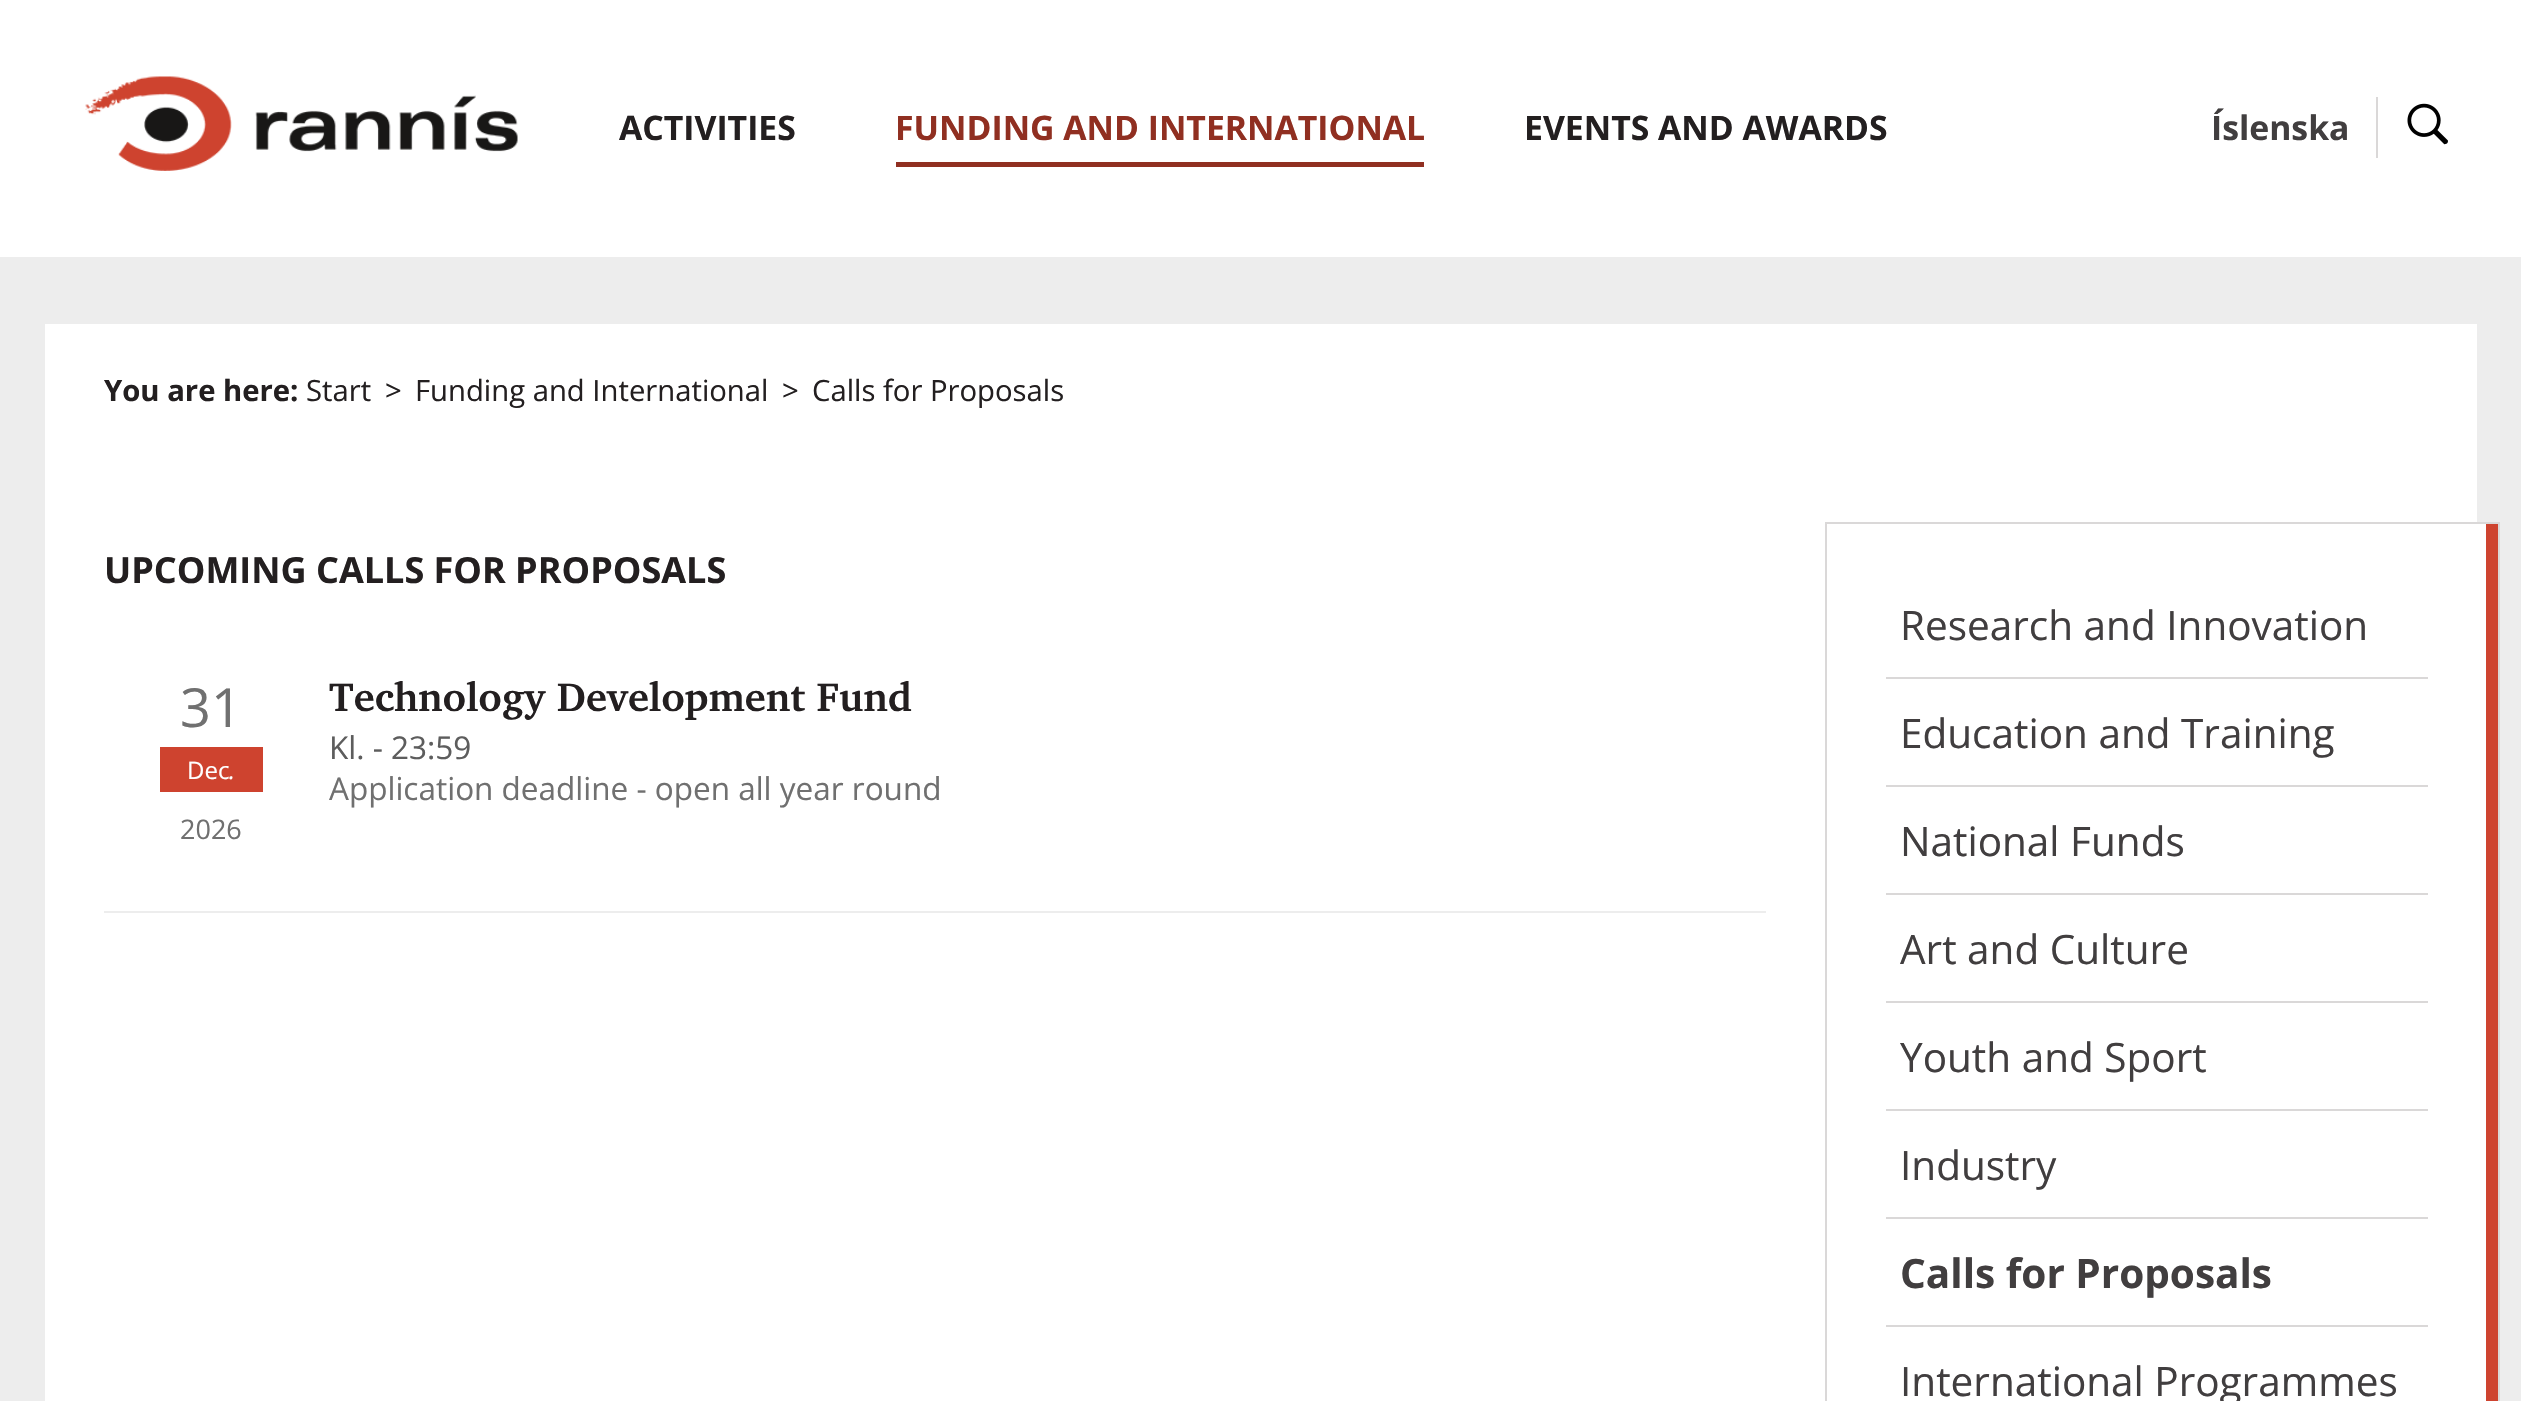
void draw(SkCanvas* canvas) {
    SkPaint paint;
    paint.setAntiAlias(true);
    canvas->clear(0xFFEDEDED);
    paint.setColor(0xFFFFFFFF);
    canvas->drawRect(SkRect::MakeXYWH(0, 0, 2521, 257), paint);
    canvas->drawImageRect(SkImages::DeferredFromEncodedData(SkData::MakeFromFileName("img1.png")), SkRect::MakeXYWH(85, 76, 433, 95), SkSamplingOptions());
    SkFont font1(fontMgr->matchFamilyStyle("Open Sans", SkFontStyle::Bold()), 33.75f);
    font1.setSubpixel(true);
    paint.setColor(0xFF231F20);
    canvas->drawString("ACTIVITIES", 619, 140, font1, paint);
    paint.setColor(0xFF902F21);
    canvas->drawRect(SkRect::MakeXYWH(896, 162, 528, 5), paint);
    canvas->drawString("FUNDING AND INTERNATIONAL", 895, 140, font1, paint);
    paint.setColor(0xFF231F20);
    canvas->drawString("EVENTS AND AWARDS", 1524, 140, font1, paint);
    paint.setColor(0xFF413E3F);
    canvas->drawString("Íslenska", 2211, 140, font1, paint);
    paint.setColor(0xFFDAD8D8);
    canvas->drawRect(SkRect::MakeXYWH(2376, 97, 2, 61), paint);
    canvas->drawImageRect(SkImages::DeferredFromEncodedData(SkData::MakeFromFileName("img2.png")), SkRect::MakeXYWH(2407, 103, 41, 42), SkSamplingOptions());
    paint.setColor(0xFFFFFFFF);
    canvas->drawRect(SkRect::MakeXYWH(45, 324, 2432, 1077), paint);
    SkFont font2(fontMgr->matchFamilyStyle("Open Sans", SkFontStyle::Bold()), 29.25f);
    font2.setSubpixel(true);
    paint.setColor(0xFF231F20);
    canvas->drawString("You are here:", 104, 401, font2, paint);
    SkFont font3(fontMgr->matchFamilyStyle("Open Sans", SkFontStyle::Normal()), 29.25f);
    font3.setSubpixel(true);
    canvas->drawString("Start", 306, 401, font3, paint);
    canvas->drawString(">", 385, 401, font3, paint);
    canvas->drawString("Funding and International", 415, 401, font3, paint);
    canvas->drawString(">", 782, 401, font3, paint);
    canvas->drawString("Calls for Proposals", 812, 401, font3, paint);
    paint.setColor(0xFFFFFFFF);
    canvas->drawRect(SkRect::MakeXYWH(2477, 524, 9, 877), paint);
    paint.setStyle(SkPaint::kStroke_Style);
    paint.setStrokeWidth(2);
    paint.setColor(0xFFDAD8D8);
    canvas->drawRect(SkRect::MakeXYWH(1826, 523, 673, 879), paint);
    paint.setStyle(SkPaint::kFill_Style);
    paint.setColor(0xFFCE432F);
    canvas->drawRect(SkRect::MakeXYWH(2486, 524, 12, 877), paint);
    paint.setColor(0xFFDAD8D8);
    canvas->drawRect(SkRect::MakeXYWH(1886, 677, 542, 2), paint);
    SkFont font4(fontMgr->matchFamilyStyle("Open Sans", SkFontStyle::Normal()), 40.5f);
    font4.setSubpixel(true);
    paint.setColor(0xFF413E3F);
    canvas->drawString("Research and Innovation", 1900, 640, font4, paint);
    paint.setColor(0xFFDAD8D8);
    canvas->drawRect(SkRect::MakeXYWH(1886, 785, 542, 2), paint);
    paint.setColor(0xFF413E3F);
    canvas->drawString("Education and Training", 1900, 748, font4, paint);
    paint.setColor(0xFFDAD8D8);
    canvas->drawRect(SkRect::MakeXYWH(1886, 893, 542, 2), paint);
    paint.setColor(0xFF413E3F);
    canvas->drawString("National Funds", 1900, 856, font4, paint);
    paint.setColor(0xFFDAD8D8);
    canvas->drawRect(SkRect::MakeXYWH(1886, 1001, 542, 2), paint);
    paint.setColor(0xFF413E3F);
    canvas->drawString("Art and Culture", 1900, 964, font4, paint);
    paint.setColor(0xFFDAD8D8);
    canvas->drawRect(SkRect::MakeXYWH(1886, 1109, 542, 2), paint);
    paint.setColor(0xFF413E3F);
    canvas->drawString("Youth and Sport", 1900, 1072, font4, paint);
    paint.setColor(0xFFDAD8D8);
    canvas->drawRect(SkRect::MakeXYWH(1886, 1217, 542, 2), paint);
    paint.setColor(0xFF413E3F);
    canvas->drawString("Industry", 1900, 1180, font4, paint);
    paint.setColor(0xFFDAD8D8);
    canvas->drawRect(SkRect::MakeXYWH(1886, 1325, 542, 2), paint);
    SkFont font5(fontMgr->matchFamilyStyle("Open Sans", SkFontStyle::Bold()), 40.5f);
    font5.setSubpixel(true);
    paint.setColor(0xFF413E3F);
    canvas->drawString("Calls for Proposals", 1900, 1288, font5, paint);
    canvas->drawString("International Programmes", 1900, 1396, font4, paint);
    SkFont font6(fontMgr->matchFamilyStyle("Open Sans", SkFontStyle::Bold()), 36);
    font6.setSubpixel(true);
    paint.setColor(0xFF231F20);
    canvas->drawString("UPCOMING CALLS FOR PROPOSALS", 104, 583, font6, paint);
    paint.setColor(0xFFEDEDED);
    canvas->drawRect(SkRect::MakeXYWH(104, 911, 1662, 2), paint);
    SkFont font7(fontMgr->matchFamilyStyle("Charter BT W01", SkFontStyle::Bold()), 40.5f);
    font7.setSubpixel(true);
    paint.setColor(0xFF231F20);
    canvas->drawString("Technology Development Fund", 329, 711, font7, paint);
    SkFont font8(fontMgr->matchFamilyStyle("Open Sans", SkFontStyle::Normal()), 54);
    font8.setSubpixel(true);
    paint.setColor(0xFF707070);
    canvas->drawString("31", 180, 727, font8, paint);
    paint.setColor(0xFFCE432F);
    canvas->drawRect(SkRect::MakeXYWH(160, 747, 103, 45), paint);
    SkFont font9(fontMgr->matchFamilyStyle("Open Sans", SkFontStyle::Normal()), 24);
    font9.setSubpixel(true);
    paint.setColor(0xFFFFFFFF);
    canvas->drawString("Dec", 187, 779, font9, paint);
    SkFont font10(fontMgr->matchFamilyStyle("Open Sans", SkFontStyle::Italic()), 24);
    font10.setSubpixel(true);
    canvas->drawString(".", 229, 779, font10, paint);
    SkFont font11(fontMgr->matchFamilyStyle("Open Sans", SkFontStyle::Normal()), 27);
    font11.setSubpixel(true);
    paint.setColor(0xFF707070);
    canvas->drawString("2026", 180, 839, font11, paint);
    SkFont font12(fontMgr->matchFamilyStyle("Open Sans", SkFontStyle::Normal()), 31.5f);
    font12.setSubpixel(true);
    paint.setColor(0xFF5D5D5D);
    canvas->drawString("Kl. - 23:59", 329, 759, font12, paint);
    paint.setColor(0xFF707070);
    canvas->drawString("Application deadline - open all year round", 329, 800, font12, paint);
}
